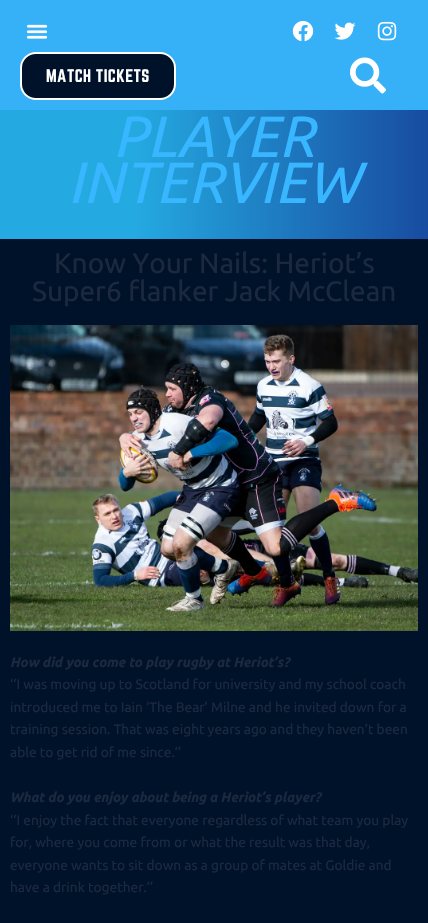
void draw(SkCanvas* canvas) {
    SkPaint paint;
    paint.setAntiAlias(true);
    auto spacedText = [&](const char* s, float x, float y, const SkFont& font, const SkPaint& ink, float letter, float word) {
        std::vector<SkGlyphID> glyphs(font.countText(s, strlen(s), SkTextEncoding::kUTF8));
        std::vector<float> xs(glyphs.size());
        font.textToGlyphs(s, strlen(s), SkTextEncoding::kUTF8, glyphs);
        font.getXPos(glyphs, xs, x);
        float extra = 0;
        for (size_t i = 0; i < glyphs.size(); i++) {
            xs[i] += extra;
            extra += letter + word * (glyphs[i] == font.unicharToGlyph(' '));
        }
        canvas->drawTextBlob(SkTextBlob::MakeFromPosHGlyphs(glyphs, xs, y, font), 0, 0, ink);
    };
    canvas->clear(0xFF00112A);
    paint.setColor(0xFF36B0F7);
    canvas->drawRect(SkRect::MakeXYWH(0, 0, 428, 110), paint);
    canvas->drawImageRect(SkImages::DeferredFromEncodedData(SkData::MakeFromFileName("img1.png")), SkRect::MakeXYWH(26, 24, 22, 15), SkSamplingOptions());
    canvas->drawImageRect(SkImages::DeferredFromEncodedData(SkData::MakeFromFileName("img2.png")), SkRect::MakeXYWH(292, 21, 22, 21), SkSamplingOptions());
    canvas->drawImageRect(SkImages::DeferredFromEncodedData(SkData::MakeFromFileName("img3.png")), SkRect::MakeXYWH(334, 22, 22, 18), SkSamplingOptions());
    canvas->drawImageRect(SkImages::DeferredFromEncodedData(SkData::MakeFromFileName("img4.png")), SkRect::MakeXYWH(377, 21, 20, 20), SkSamplingOptions());
    paint.setColor(0xFF00112A);
    canvas->drawRoundRect(SkRect::MakeXYWH(21, 53, 154, 46), 15, 15, paint);
    paint.setStyle(SkPaint::kStroke_Style);
    paint.setStrokeWidth(2);
    paint.setColor(0xFFFFFFFF);
    canvas->drawRoundRect(SkRect::MakeXYWH(21, 53, 154, 46), 15, 15, paint);
    SkFont font1(fontMgr->matchFamilyStyle("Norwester", SkFontStyle::Normal()), 16);
    font1.setSubpixel(true);
    paint.setStyle(SkPaint::kFill_Style);
    spacedText("MATCH TICKETS", 46, 82, font1, paint, 0.4f, 0);
    canvas->drawImageRect(SkImages::DeferredFromEncodedData(SkData::MakeFromFileName("img5.png")), SkRect::MakeXYWH(350, 57, 36, 37), SkSamplingOptions());
    {
        const SkColor colors[] = {0xFF24AAE1, 0xFF184CA0};
        const float stops[] = {0.31f, 1};
        const SkPoint ends[] = {{0, 175}, {428, 175}};
        paint.setShader(SkGradientShader::MakeLinear(ends, colors, stops, 2, SkTileMode::kClamp));
        paint.setAlpha(255);
    }
    canvas->drawRect(SkRect::MakeXYWH(0, 110, 428, 129), paint);
    SkFont font2(fontMgr->matchFamilyStyle("Ubuntu", SkFontStyle::Italic()), 58);
    font2.setSubpixel(true);
    paint.setShader(nullptr);
    paint.setColor(0xFF38B6FF);
    canvas->drawString("PLAYER", 113, 157, font2, paint);
    canvas->drawString("INTERVIEW", 68, 203, font2, paint);
    SkFont font3(fontMgr->matchFamilyStyle("Ubuntu", SkFontStyle::Normal()), 28);
    font3.setSubpixel(true);
    paint.setColor(0xFF1B283E);
    canvas->drawString("Know Your Nails: Heriot’s", 54, 273, font3, paint);
    canvas->drawString("Super6 flanker Jack McClean", 32, 301, font3, paint);
    canvas->drawImageRect(SkImages::DeferredFromEncodedData(SkData::MakeFromFileName("img6.png")), SkRect::MakeXYWH(10, 325, 408, 306), SkSamplingOptions());
    SkFont font4(fontMgr->matchFamilyStyle("Ubuntu", SkFontStyle::BoldItalic()), 13.7f);
    font4.setSubpixel(true);
    canvas->drawString("How did you come to play rugby at Heriot’s?", 10, 667, font4, paint);
    SkFont font5(fontMgr->matchFamilyStyle("Ubuntu", SkFontStyle::Normal()), 13.7f);
    font5.setSubpixel(true);
    canvas->drawString("‘‘I was moving up to Scotland for university and my school coach", 10, 689, font5, paint);
    canvas->drawString("introduced me to Iain ‘The Bear’ Milne and he invited down for a", 10, 712, font5, paint);
    canvas->drawString("training session. That was eight years ago and they haven’t been", 10, 734, font5, paint);
    canvas->drawString("able to get rid of me since.’’", 10, 757, font5, paint);
    canvas->drawString("What do you enjoy about being a Heriot’s player?", 10, 802, font4, paint);
    canvas->drawString("‘‘I enjoy the fact that everyone regardless of what team you play", 10, 825, font5, paint);
    canvas->drawString("for, where you come from or what the result was that day,", 10, 847, font5, paint);
    canvas->drawString("everyone wants to sit down as a group of mates at Goldie and", 10, 870, font5, paint);
    canvas->drawString("have a drink together.’’", 10, 892, font5, paint);
}
